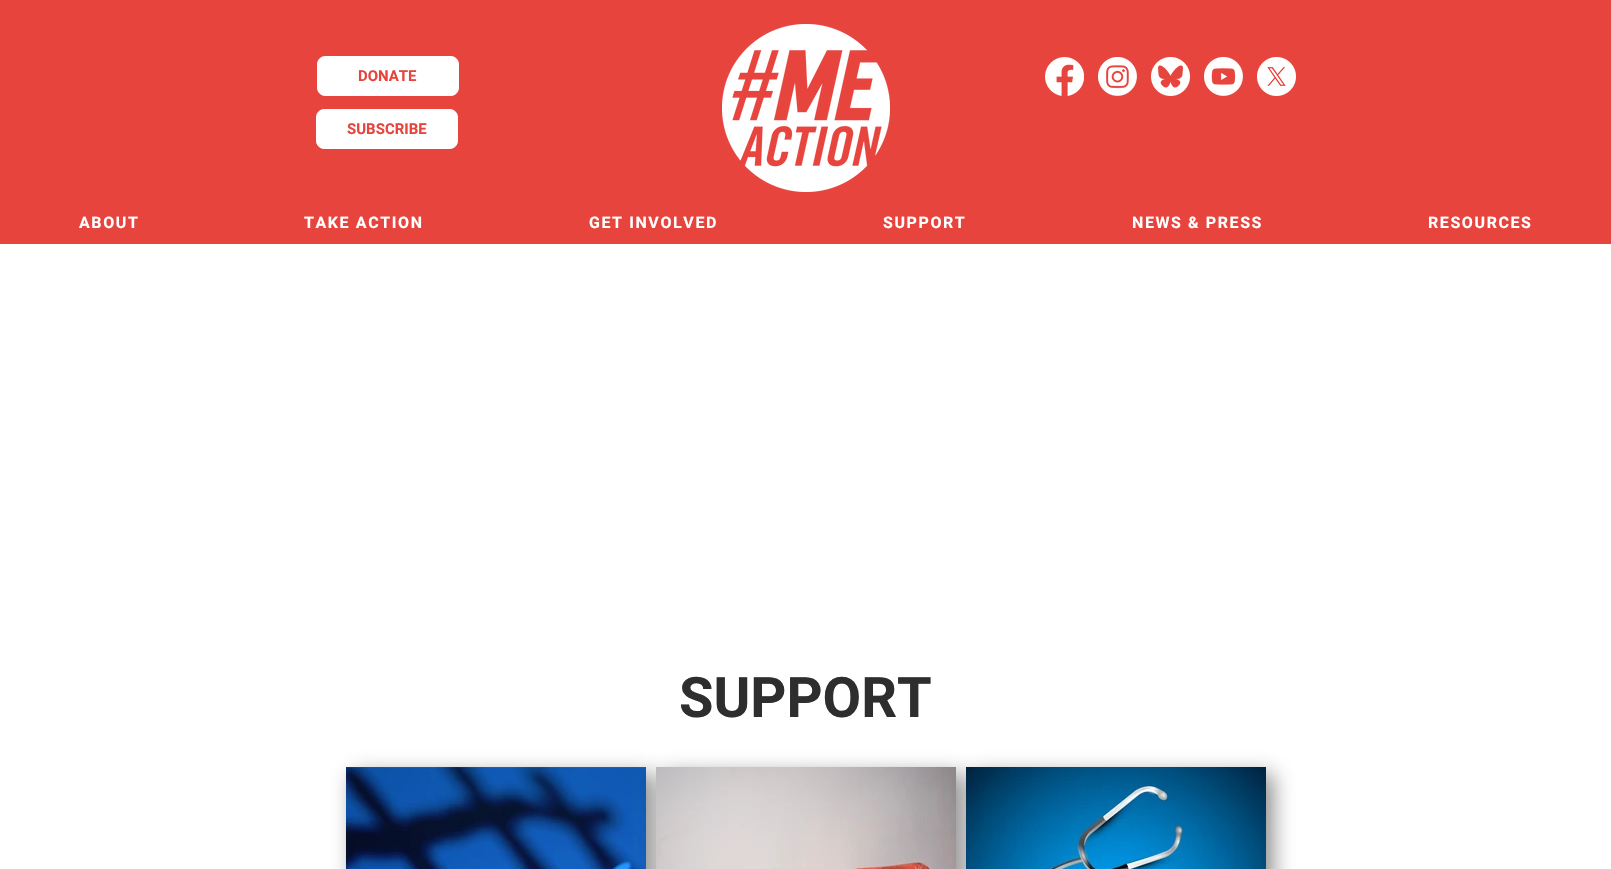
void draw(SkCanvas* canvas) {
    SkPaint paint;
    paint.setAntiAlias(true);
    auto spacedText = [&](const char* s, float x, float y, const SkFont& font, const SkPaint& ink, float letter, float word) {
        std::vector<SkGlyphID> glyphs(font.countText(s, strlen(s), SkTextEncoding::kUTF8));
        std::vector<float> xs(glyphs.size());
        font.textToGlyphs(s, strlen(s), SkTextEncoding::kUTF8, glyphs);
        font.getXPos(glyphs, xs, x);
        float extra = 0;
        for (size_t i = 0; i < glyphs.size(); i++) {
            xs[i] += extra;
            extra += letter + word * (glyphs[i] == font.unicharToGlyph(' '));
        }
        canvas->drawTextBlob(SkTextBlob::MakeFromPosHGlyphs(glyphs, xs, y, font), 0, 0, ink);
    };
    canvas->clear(0xFFFFFFFF);
    paint.setColor(0xFFE6443D);
    canvas->drawRect(SkRect::MakeXYWH(0, 0, 1611, 244), paint);
    paint.setColor(0xFFFFFFFF);
    canvas->drawRoundRect(SkRect::MakeXYWH(317.5f, 56.5f, 141, 39), 7.5f, 7.5f, paint);
    paint.setStyle(SkPaint::kStroke_Style);
    paint.setStrokeWidth(1);
    canvas->drawRoundRect(SkRect::MakeXYWH(317.5f, 56.5f, 141, 39), 7.5f, 7.5f, paint);
    SkFont font1(fontMgr->matchFamilyStyle("Roboto", SkFontStyle::Bold()), 15);
    font1.setSubpixel(true);
    paint.setStyle(SkPaint::kFill_Style);
    paint.setColor(0xFFE6443D);
    canvas->drawString("DONATE", 358, 81, font1, paint);
    canvas->drawImageRect(SkImages::DeferredFromEncodedData(SkData::MakeFromFileName("img1.png")), SkRect::MakeXYWH(722, 24, 168, 168), SkSamplingOptions());
    canvas->drawImageRect(SkImages::DeferredFromEncodedData(SkData::MakeFromFileName("img2.png")), SkRect::MakeXYWH(1045, 57, 39, 39), SkSamplingOptions());
    canvas->drawImageRect(SkImages::DeferredFromEncodedData(SkData::MakeFromFileName("img3.png")), SkRect::MakeXYWH(1098, 57, 39, 39), SkSamplingOptions());
    canvas->drawImageRect(SkImages::DeferredFromEncodedData(SkData::MakeFromFileName("img4.png")), SkRect::MakeXYWH(1151, 57, 39, 39), SkSamplingOptions());
    canvas->drawImageRect(SkImages::DeferredFromEncodedData(SkData::MakeFromFileName("img5.png")), SkRect::MakeXYWH(1204, 57, 39, 39), SkSamplingOptions());
    canvas->drawImageRect(SkImages::DeferredFromEncodedData(SkData::MakeFromFileName("img6.png")), SkRect::MakeXYWH(1257, 57, 39, 39), SkSamplingOptions());
    paint.setColor(0xFFFFFFFF);
    canvas->drawRoundRect(SkRect::MakeXYWH(316.5f, 109.5f, 141, 39), 7.5f, 7.5f, paint);
    paint.setStyle(SkPaint::kStroke_Style);
    canvas->drawRoundRect(SkRect::MakeXYWH(316.5f, 109.5f, 141, 39), 7.5f, 7.5f, paint);
    paint.setStyle(SkPaint::kFill_Style);
    paint.setColor(0xFFE6443D);
    canvas->drawString("SUBSCRIBE", 347, 134, font1, paint);
    SkFont font2(fontMgr->matchFamilyStyle("Roboto", SkFontStyle::Bold()), 16);
    font2.setSubpixel(true);
    paint.setColor(0xFFFFFFFF);
    spacedText("ABOUT", 79, 228, font2, paint, 1.6f, 0);
    spacedText("TAKE ACTION", 304, 228, font2, paint, 1.6f, 0);
    spacedText("GET INVOLVED", 589, 228, font2, paint, 1.6f, 0);
    spacedText("SUPPORT", 883, 228, font2, paint, 1.6f, 0);
    spacedText("NEWS & PRESS", 1132, 228, font2, paint, 1.6f, 0);
    spacedText("RESOURCES", 1428, 228, font2, paint, 1.6f, 0);
    SkFont font3(fontMgr->matchFamilyStyle("Roboto", SkFontStyle::Bold()), 56);
    font3.setSubpixel(true);
    paint.setColor(0xFF2F2E2E);
    canvas->drawString("SUPPORT", 679, 717, font3, paint);
    paint.setColor(0x8C2F2E2E);
    paint.setMaskFilter(SkMaskFilter::MakeBlur(kNormal_SkBlurStyle, 10));
    canvas->drawRect(SkRect::MakeXYWH(353, 774, 300, 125), paint);
    paint.setMaskFilter(nullptr);
    canvas->drawImageRect(SkImages::DeferredFromEncodedData(SkData::MakeFromFileName("img7.png")), SkRect::MakeXYWH(346, 767, 300, 102), SkSamplingOptions());
    paint.setMaskFilter(SkMaskFilter::MakeBlur(kNormal_SkBlurStyle, 10));
    canvas->drawRect(SkRect::MakeXYWH(663, 774, 300, 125), paint);
    paint.setMaskFilter(nullptr);
    canvas->drawImageRect(SkImages::DeferredFromEncodedData(SkData::MakeFromFileName("img8.png")), SkRect::MakeXYWH(656, 767, 300, 102), SkSamplingOptions());
    paint.setMaskFilter(SkMaskFilter::MakeBlur(kNormal_SkBlurStyle, 10));
    canvas->drawRect(SkRect::MakeXYWH(973, 774, 300, 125), paint);
    paint.setMaskFilter(nullptr);
    canvas->drawImageRect(SkImages::DeferredFromEncodedData(SkData::MakeFromFileName("img9.png")), SkRect::MakeXYWH(966, 767, 300, 102), SkSamplingOptions());
}
